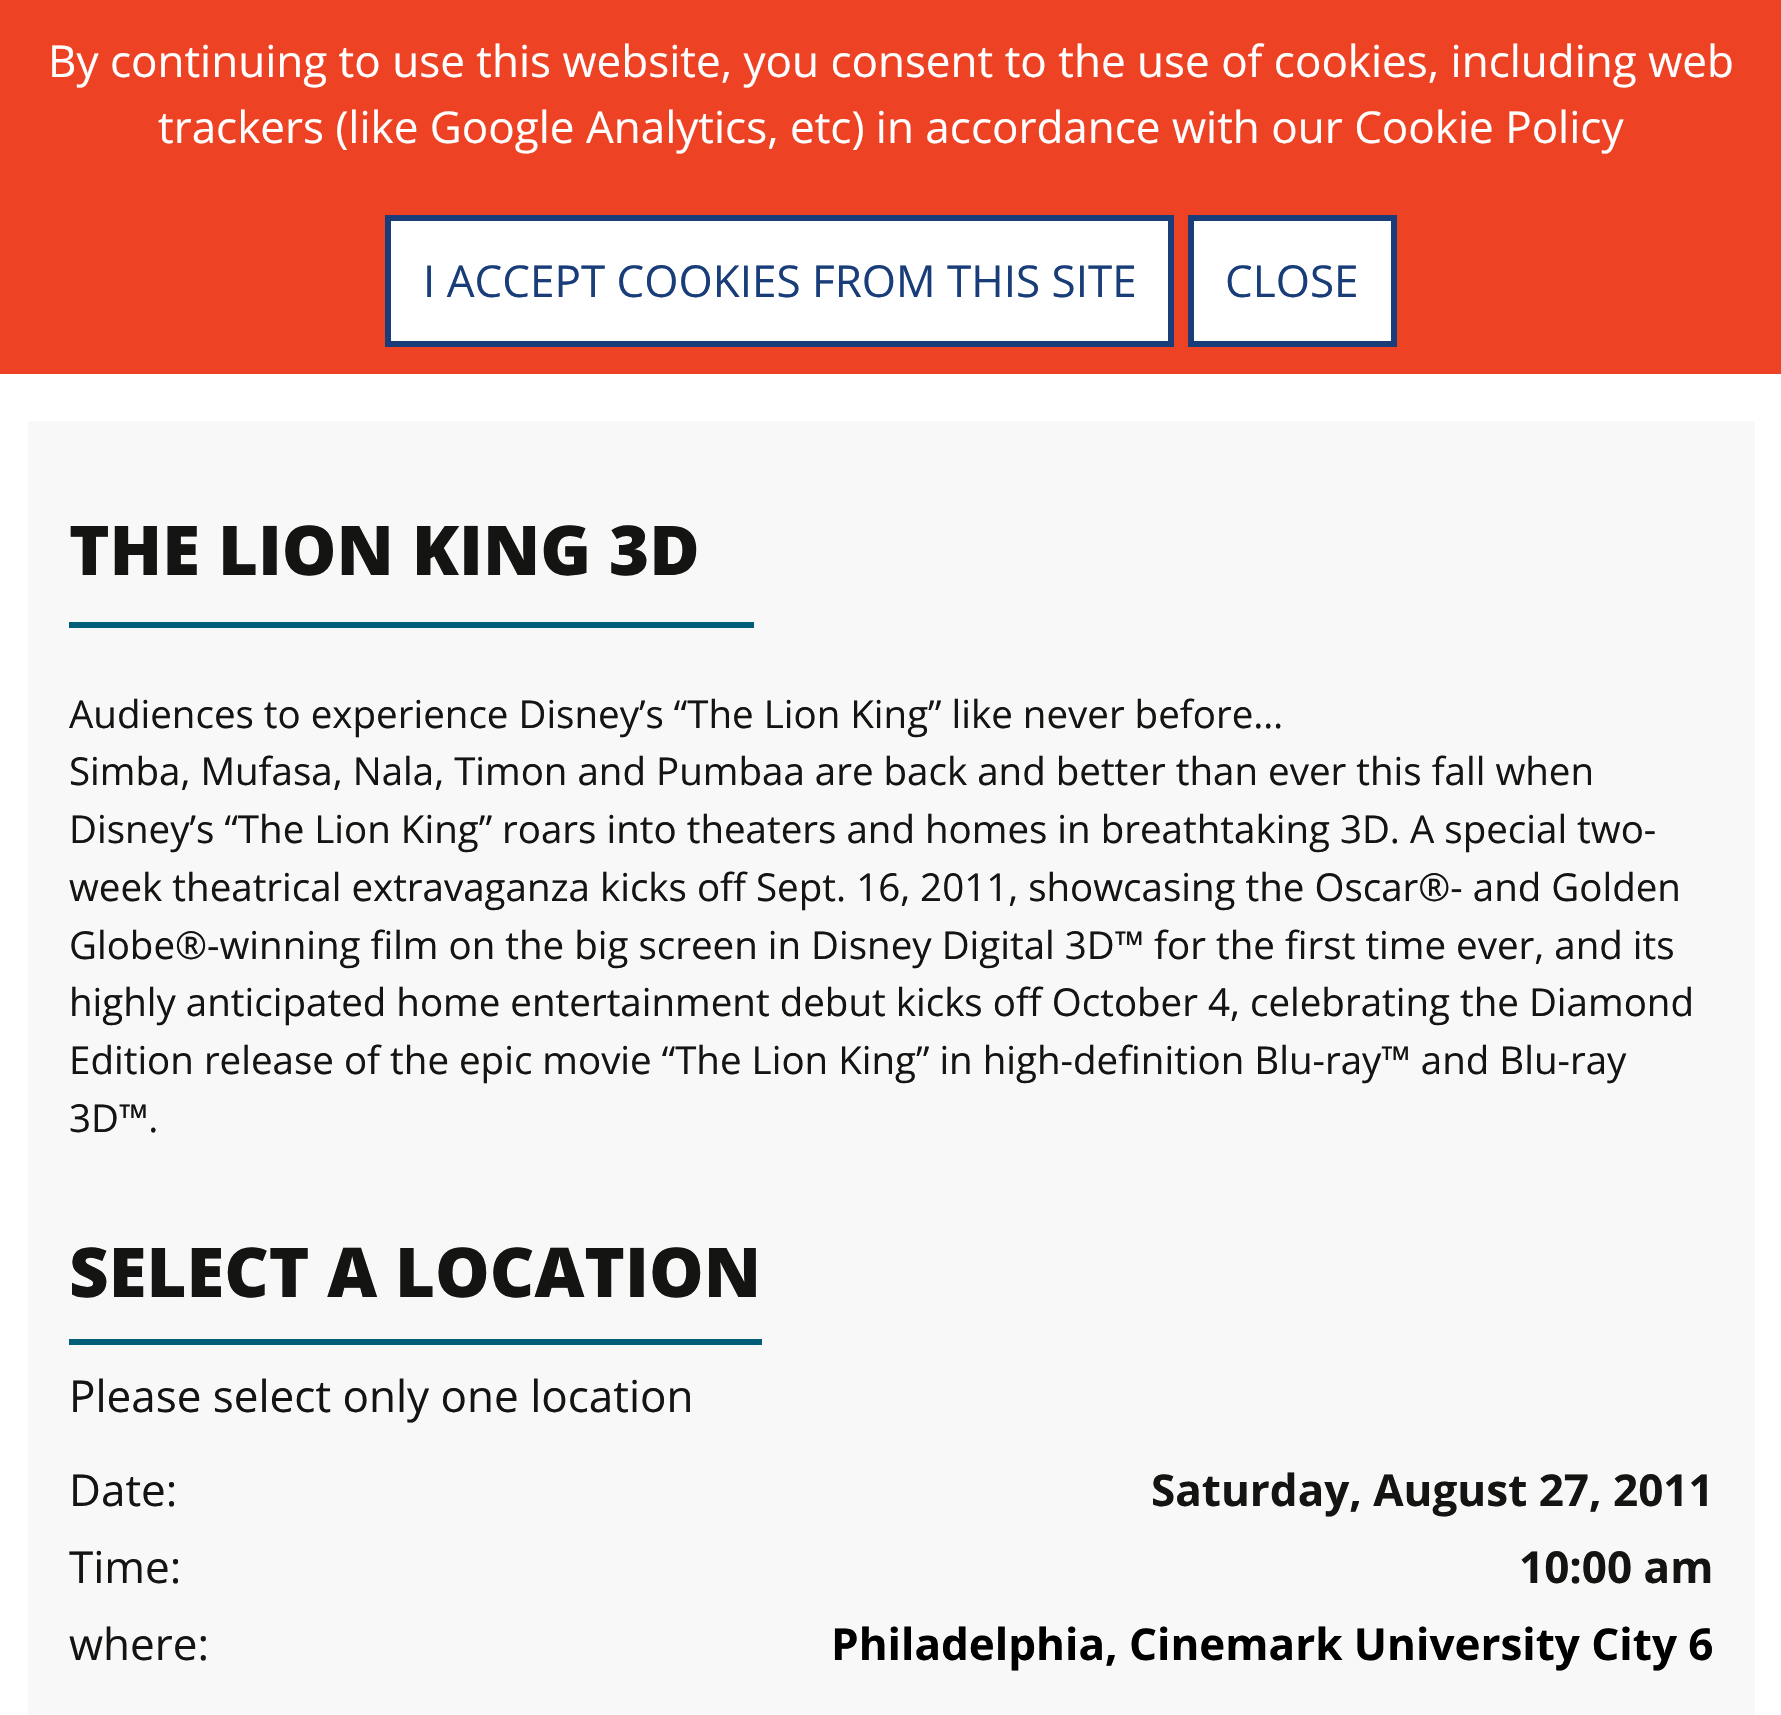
void draw(SkCanvas* canvas) {
    SkPaint paint;
    paint.setAntiAlias(true);
    canvas->clear(0xFFFFFFFF);
    paint.setColor(0xFFEE4225);
    canvas->drawRect(SkRect::MakeXYWH(0, 0, 1781, 374), paint);
    SkFont font1(fontMgr->matchFamilyStyle("Open Sans", SkFontStyle::Normal()), 44);
    font1.setSubpixel(true);
    paint.setColor(0xFFFFFFFF);
    canvas->drawString("By continuing to use this website, you consent to the use of cookies, including web", 48, 77, font1, paint);
    canvas->drawString("trackers (like Google Analytics, etc) in accordance with our Cookie Policy", 158, 143, font1, paint);
    canvas->drawRect(SkRect::MakeXYWH(388, 218, 783, 126), paint);
    paint.setStyle(SkPaint::kStroke_Style);
    paint.setStrokeWidth(6);
    paint.setColor(0xFF183D78);
    canvas->drawRect(SkRect::MakeXYWH(388, 218, 783, 126), paint);
    paint.setStyle(SkPaint::kFill_Style);
    canvas->drawString("I ACCEPT COOKIES FROM THIS SITE", 423, 297, font1, paint);
    paint.setColor(0xFFFFFFFF);
    canvas->drawRect(SkRect::MakeXYWH(1191, 218, 203, 126), paint);
    paint.setStyle(SkPaint::kStroke_Style);
    paint.setColor(0xFF183D78);
    canvas->drawRect(SkRect::MakeXYWH(1191, 218, 203, 126), paint);
    paint.setStyle(SkPaint::kFill_Style);
    canvas->drawString("CLOSE", 1225, 297, font1, paint);
    paint.setColor(0xFFF8F8F8);
    canvas->drawRect(SkRect::MakeXYWH(28, 421, 1727, 1294), paint);
    paint.setColor(0xFF005E79);
    canvas->drawRect(SkRect::MakeXYWH(69, 622, 685, 6), paint);
    SkFont font2(fontMgr->matchFamilyStyle("Open Sans", SkFontStyle(800, SkFontStyle::kNormal_Width, SkFontStyle::kUpright_Slant)), 68.75f);
    font2.setSubpixel(true);
    paint.setColor(0xFF141412);
    canvas->drawString("THE LION KING 3D", 69, 575, font2, paint);
    SkFont font3(fontMgr->matchFamilyStyle("Open Sans", SkFontStyle::Normal()), 38.5f);
    font3.setSubpixel(true);
    canvas->drawString("Audiences to experience Disney’s “The Lion King” like never before…", 69, 728, font3, paint);
    canvas->drawString("Simba, Mufasa, Nala, Timon and Pumbaa are back and better than ever this fall when", 69, 785, font3, paint);
    canvas->drawString("Disney’s “The Lion King” roars into theaters and homes in breathtaking 3D. A special two-", 69, 843, font3, paint);
    canvas->drawString("week theatrical extravaganza kicks off Sept. 16, 2011, showcasing the Oscar®- and Golden", 69, 901, font3, paint);
    canvas->drawString("Globe®-winning film on the big screen in Disney Digital 3D™ for the first time ever, and its", 69, 959, font3, paint);
    canvas->drawString("highly anticipated home entertainment debut kicks off October 4, celebrating the Diamond", 69, 1016, font3, paint);
    canvas->drawString("Edition release of the epic movie “The Lion King” in high-definition Blu-ray™ and Blu-ray", 69, 1074, font3, paint);
    canvas->drawString("3D™.", 69, 1132, font3, paint);
    canvas->drawString("SELECT A LOCATION", 69, 1297, font2, paint);
    paint.setColor(0xFF005E79);
    canvas->drawRect(SkRect::MakeXYWH(69, 1339, 693, 6), paint);
    paint.setColor(0xFF141412);
    canvas->drawString("Please select only one location", 69, 1412, font1, paint);
    canvas->drawString("Date:", 69, 1506, font1, paint);
    SkFont font4(fontMgr->matchFamilyStyle("Open Sans", SkFontStyle::Bold()), 44);
    font4.setSubpixel(true);
    canvas->drawString("Saturday, August 27, 2011", 1151, 1506, font4, paint);
    canvas->drawString("Time:", 69, 1583, font1, paint);
    canvas->drawString("10:00 am", 1519, 1583, font4, paint);
    canvas->drawString("where:", 69, 1660, font1, paint);
    paint.setColor(0xFF000000);
    canvas->drawString("Philadelphia, Cinemark University City 6", 831, 1660, font4, paint);
}
